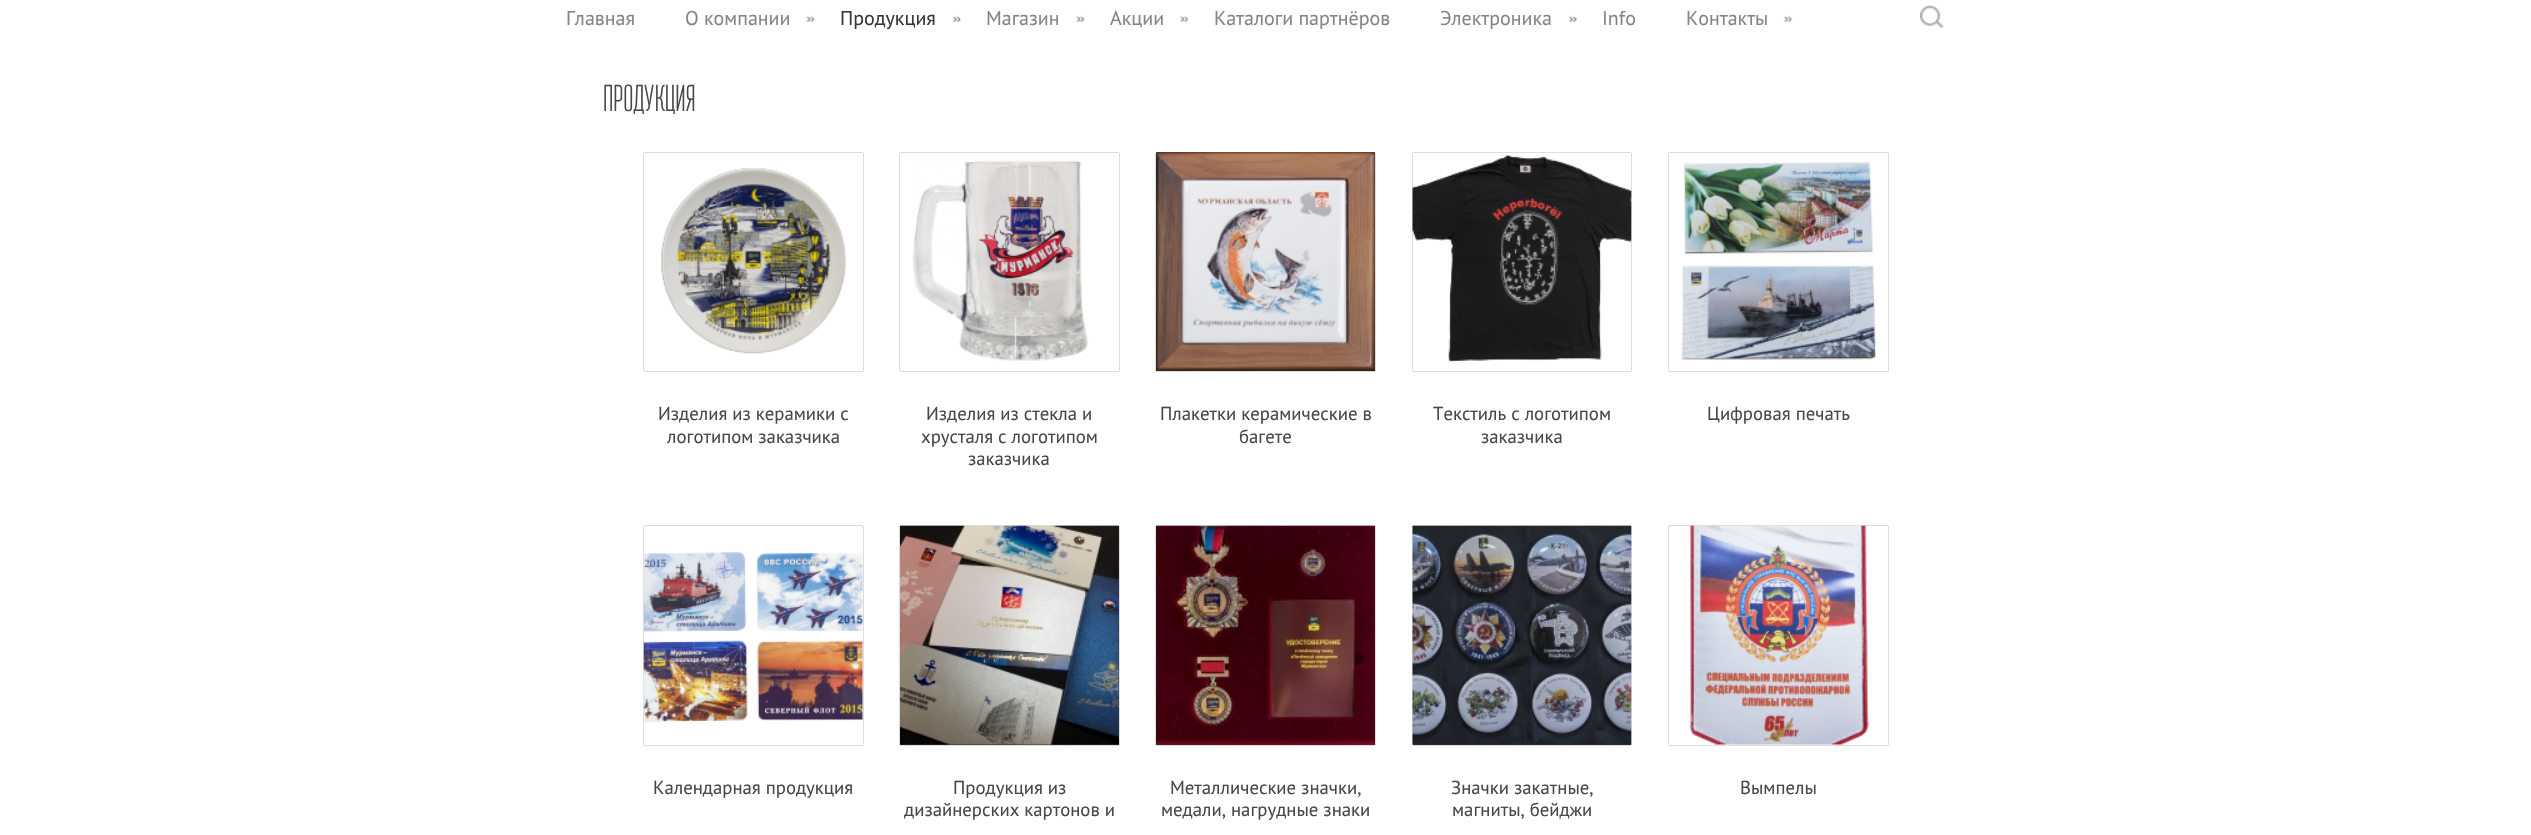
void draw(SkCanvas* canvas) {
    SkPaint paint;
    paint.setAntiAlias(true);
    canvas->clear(0xFFFFFFFF);
    SkFont font1(fontMgr->matchFamilyStyle("PT Sans", SkFontStyle::Normal()), 20);
    font1.setSubpixel(true);
    paint.setColor(0xFF858585);
    canvas->drawString("Главная", 566, 25, font1, paint);
    canvas->drawString("О компании", 685, 25, font1, paint);
    canvas->drawImageRect(SkImages::DeferredFromEncodedData(SkData::MakeFromFileName("img1.png")), SkRect::MakeXYWH(806, 15, 9, 7), SkSamplingOptions());
    paint.setColor(0xFF383838);
    canvas->drawString("Продукция", 840, 25, font1, paint);
    canvas->drawImageRect(SkImages::DeferredFromEncodedData(SkData::MakeFromFileName("img2.png")), SkRect::MakeXYWH(952, 15, 10, 7), SkSamplingOptions());
    paint.setColor(0xFF858585);
    canvas->drawString("Магазин", 986, 25, font1, paint);
    canvas->drawImageRect(SkImages::DeferredFromEncodedData(SkData::MakeFromFileName("img1.png")), SkRect::MakeXYWH(1076, 15, 9, 7), SkSamplingOptions());
    canvas->drawString("Акции", 1110, 25, font1, paint);
    canvas->drawImageRect(SkImages::DeferredFromEncodedData(SkData::MakeFromFileName("img3.png")), SkRect::MakeXYWH(1180, 15, 9, 7), SkSamplingOptions());
    canvas->drawString("Каталоги партнёров", 1214, 25, font1, paint);
    canvas->drawString("Электроника", 1440, 25, font1, paint);
    canvas->drawImageRect(SkImages::DeferredFromEncodedData(SkData::MakeFromFileName("img4.png")), SkRect::MakeXYWH(1568, 15, 10, 7), SkSamplingOptions());
    canvas->drawString("Info", 1602, 25, font1, paint);
    canvas->drawString("Контакты", 1686, 25, font1, paint);
    canvas->drawImageRect(SkImages::DeferredFromEncodedData(SkData::MakeFromFileName("img4.png")), SkRect::MakeXYWH(1783, 15, 10, 7), SkSamplingOptions());
    canvas->drawImageRect(SkImages::DeferredFromEncodedData(SkData::MakeFromFileName("img5.png")), SkRect::MakeXYWH(1920, 5, 24, 24), SkSamplingOptions());
    SkFont font2(fontMgr->matchFamilyStyle("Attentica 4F", SkFontStyle(200, SkFontStyle::kNormal_Width, SkFontStyle::kUpright_Slant)), 37.5f);
    font2.setSubpixel(true);
    paint.setColor(0xFF474747);
    canvas->drawString("Продукция", 603, 111, font2, paint);
    canvas->save();
    canvas->clipPath(SkPathBuilder(SkPathFillType::kEvenOdd).moveTo(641, 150).lineTo(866, 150).lineTo(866, 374).lineTo(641, 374).close().moveTo(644, 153).lineTo(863, 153).lineTo(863, 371).lineTo(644, 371).close().detach(), true);
    paint.setColor(0xCC000000);
    paint.setMaskFilter(SkMaskFilter::MakeBlur(kNormal_SkBlurStyle, 0.5f));
    canvas->drawRect(SkRect::MakeXYWH(644, 153, 219, 218), paint);
    paint.setMaskFilter(nullptr);
    canvas->restore();
    canvas->drawImageRect(SkImages::DeferredFromEncodedData(SkData::MakeFromFileName("img6.png")), SkRect::MakeXYWH(661, 168, 186, 186), SkSamplingOptions());
    SkFont font3(fontMgr->matchFamilyStyle("PT Sans", SkFontStyle::Normal()), 18.75f);
    font3.setSubpixel(true);
    paint.setColor(0xFF474747);
    canvas->drawString("Изделия из керамики с", 658, 420, font3, paint);
    canvas->drawString("логотипом заказчика", 667, 443, font3, paint);
    canvas->save();
    canvas->clipPath(SkPathBuilder(SkPathFillType::kEvenOdd).moveTo(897, 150).lineTo(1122, 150).lineTo(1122, 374).lineTo(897, 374).close().moveTo(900, 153).lineTo(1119, 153).lineTo(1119, 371).lineTo(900, 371).close().detach(), true);
    paint.setColor(0xCC000000);
    paint.setMaskFilter(SkMaskFilter::MakeBlur(kNormal_SkBlurStyle, 0.5f));
    canvas->drawRect(SkRect::MakeXYWH(900, 153, 219, 218), paint);
    paint.setMaskFilter(nullptr);
    canvas->restore();
    canvas->drawImageRect(SkImages::DeferredFromEncodedData(SkData::MakeFromFileName("img7.png")), SkRect::MakeXYWH(912, 160, 177, 201), SkSamplingOptions());
    paint.setColor(0xFF474747);
    canvas->drawString("Изделия из стекла и", 926, 420, font3, paint);
    canvas->drawString("хрусталя с логотипом", 921, 443, font3, paint);
    canvas->drawString("заказчика", 968, 465, font3, paint);
    paint.setColor(0xCC000000);
    paint.setMaskFilter(SkMaskFilter::MakeBlur(kNormal_SkBlurStyle, 0.5f));
    canvas->drawRect(SkRect::MakeXYWH(1156, 153, 219, 218), paint);
    paint.setMaskFilter(nullptr);
    canvas->drawImageRect(SkImages::DeferredFromEncodedData(SkData::MakeFromFileName("img8.png")), SkRect::MakeXYWH(1156, 152, 219, 219), SkSamplingOptions());
    paint.setColor(0xFF474747);
    canvas->drawString("Плакетки керамические в", 1160, 420, font3, paint);
    canvas->drawString("багете", 1239, 443, font3, paint);
    canvas->save();
    canvas->clipPath(SkPathBuilder(SkPathFillType::kEvenOdd).moveTo(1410, 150).lineTo(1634, 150).lineTo(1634, 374).lineTo(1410, 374).close().moveTo(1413, 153).lineTo(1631, 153).lineTo(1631, 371).lineTo(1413, 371).close().detach(), true);
    paint.setColor(0xCC000000);
    paint.setMaskFilter(SkMaskFilter::MakeBlur(kNormal_SkBlurStyle, 0.5f));
    canvas->drawRect(SkRect::MakeXYWH(1413, 153, 218, 218), paint);
    paint.setMaskFilter(nullptr);
    canvas->restore();
    canvas->drawImageRect(SkImages::DeferredFromEncodedData(SkData::MakeFromFileName("img9.png")), SkRect::MakeXYWH(1412, 154, 220, 209), SkSamplingOptions());
    paint.setColor(0xFF474747);
    canvas->drawString("Текстиль с логотипом", 1433, 420, font3, paint);
    canvas->drawString("заказчика", 1481, 443, font3, paint);
    canvas->save();
    canvas->clipPath(SkPathBuilder(SkPathFillType::kEvenOdd).moveTo(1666, 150).lineTo(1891, 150).lineTo(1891, 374).lineTo(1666, 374).close().moveTo(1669, 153).lineTo(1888, 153).lineTo(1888, 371).lineTo(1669, 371).close().detach(), true);
    paint.setColor(0xCC000000);
    paint.setMaskFilter(SkMaskFilter::MakeBlur(kNormal_SkBlurStyle, 0.5f));
    canvas->drawRect(SkRect::MakeXYWH(1669, 153, 219, 218), paint);
    paint.setMaskFilter(nullptr);
    canvas->restore();
    canvas->drawImageRect(SkImages::DeferredFromEncodedData(SkData::MakeFromFileName("img10.png")), SkRect::MakeXYWH(1681, 162, 196, 198), SkSamplingOptions());
    paint.setColor(0xFF474747);
    canvas->drawString("Цифровая печать", 1707, 420, font3, paint);
    canvas->save();
    canvas->clipPath(SkPathBuilder(SkPathFillType::kEvenOdd).moveTo(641, 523).lineTo(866, 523).lineTo(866, 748).lineTo(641, 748).close().moveTo(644, 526).lineTo(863, 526).lineTo(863, 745).lineTo(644, 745).close().detach(), true);
    paint.setColor(0xCC000000);
    paint.setMaskFilter(SkMaskFilter::MakeBlur(kNormal_SkBlurStyle, 0.5f));
    canvas->drawRect(SkRect::MakeXYWH(644, 526, 219, 219), paint);
    paint.setMaskFilter(nullptr);
    canvas->restore();
    canvas->drawImageRect(SkImages::DeferredFromEncodedData(SkData::MakeFromFileName("img11.png")), SkRect::MakeXYWH(643, 551, 220, 172), SkSamplingOptions());
    paint.setColor(0xFF474747);
    canvas->drawString("Календарная продукция", 653, 794, font3, paint);
    paint.setColor(0xCC000000);
    paint.setMaskFilter(SkMaskFilter::MakeBlur(kNormal_SkBlurStyle, 0.5f));
    canvas->drawRect(SkRect::MakeXYWH(900, 526, 219, 219), paint);
    paint.setMaskFilter(nullptr);
    canvas->drawImageRect(SkImages::DeferredFromEncodedData(SkData::MakeFromFileName("img12.png")), SkRect::MakeXYWH(900, 525, 219, 220), SkSamplingOptions());
    paint.setColor(0xFF474747);
    canvas->drawString("Продукция из", 953, 794, font3, paint);
    canvas->drawString("дизайнерских картонов и", 904, 816, font3, paint);
    paint.setColor(0xCC000000);
    paint.setMaskFilter(SkMaskFilter::MakeBlur(kNormal_SkBlurStyle, 0.5f));
    canvas->drawRect(SkRect::MakeXYWH(1156, 526, 219, 219), paint);
    paint.setMaskFilter(nullptr);
    canvas->drawImageRect(SkImages::DeferredFromEncodedData(SkData::MakeFromFileName("img13.png")), SkRect::MakeXYWH(1156, 525, 219, 220), SkSamplingOptions());
    paint.setColor(0xFF474747);
    canvas->drawString("Металлические значки,", 1170, 794, font3, paint);
    canvas->drawString("медали, нагрудные знаки", 1161, 816, font3, paint);
    paint.setColor(0xCC000000);
    paint.setMaskFilter(SkMaskFilter::MakeBlur(kNormal_SkBlurStyle, 0.5f));
    canvas->drawRect(SkRect::MakeXYWH(1413, 526, 218, 219), paint);
    paint.setMaskFilter(nullptr);
    canvas->drawImageRect(SkImages::DeferredFromEncodedData(SkData::MakeFromFileName("img14.png")), SkRect::MakeXYWH(1412, 525, 220, 220), SkSamplingOptions());
    paint.setColor(0xFF474747);
    canvas->drawString("Значки закатные,", 1451, 794, font3, paint);
    canvas->drawString("магниты, бейджи", 1452, 816, font3, paint);
    canvas->save();
    canvas->clipPath(SkPathBuilder(SkPathFillType::kEvenOdd).moveTo(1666, 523).lineTo(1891, 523).lineTo(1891, 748).lineTo(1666, 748).close().moveTo(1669, 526).lineTo(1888, 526).lineTo(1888, 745).lineTo(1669, 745).close().detach(), true);
    paint.setColor(0xCC000000);
    paint.setMaskFilter(SkMaskFilter::MakeBlur(kNormal_SkBlurStyle, 0.5f));
    canvas->drawRect(SkRect::MakeXYWH(1669, 526, 219, 219), paint);
    paint.setMaskFilter(nullptr);
    canvas->restore();
    canvas->drawImageRect(SkImages::DeferredFromEncodedData(SkData::MakeFromFileName("img15.png")), SkRect::MakeXYWH(1689, 525, 180, 220), SkSamplingOptions());
    paint.setColor(0xFF474747);
    canvas->drawString("Вымпелы", 1740, 794, font3, paint);
}
